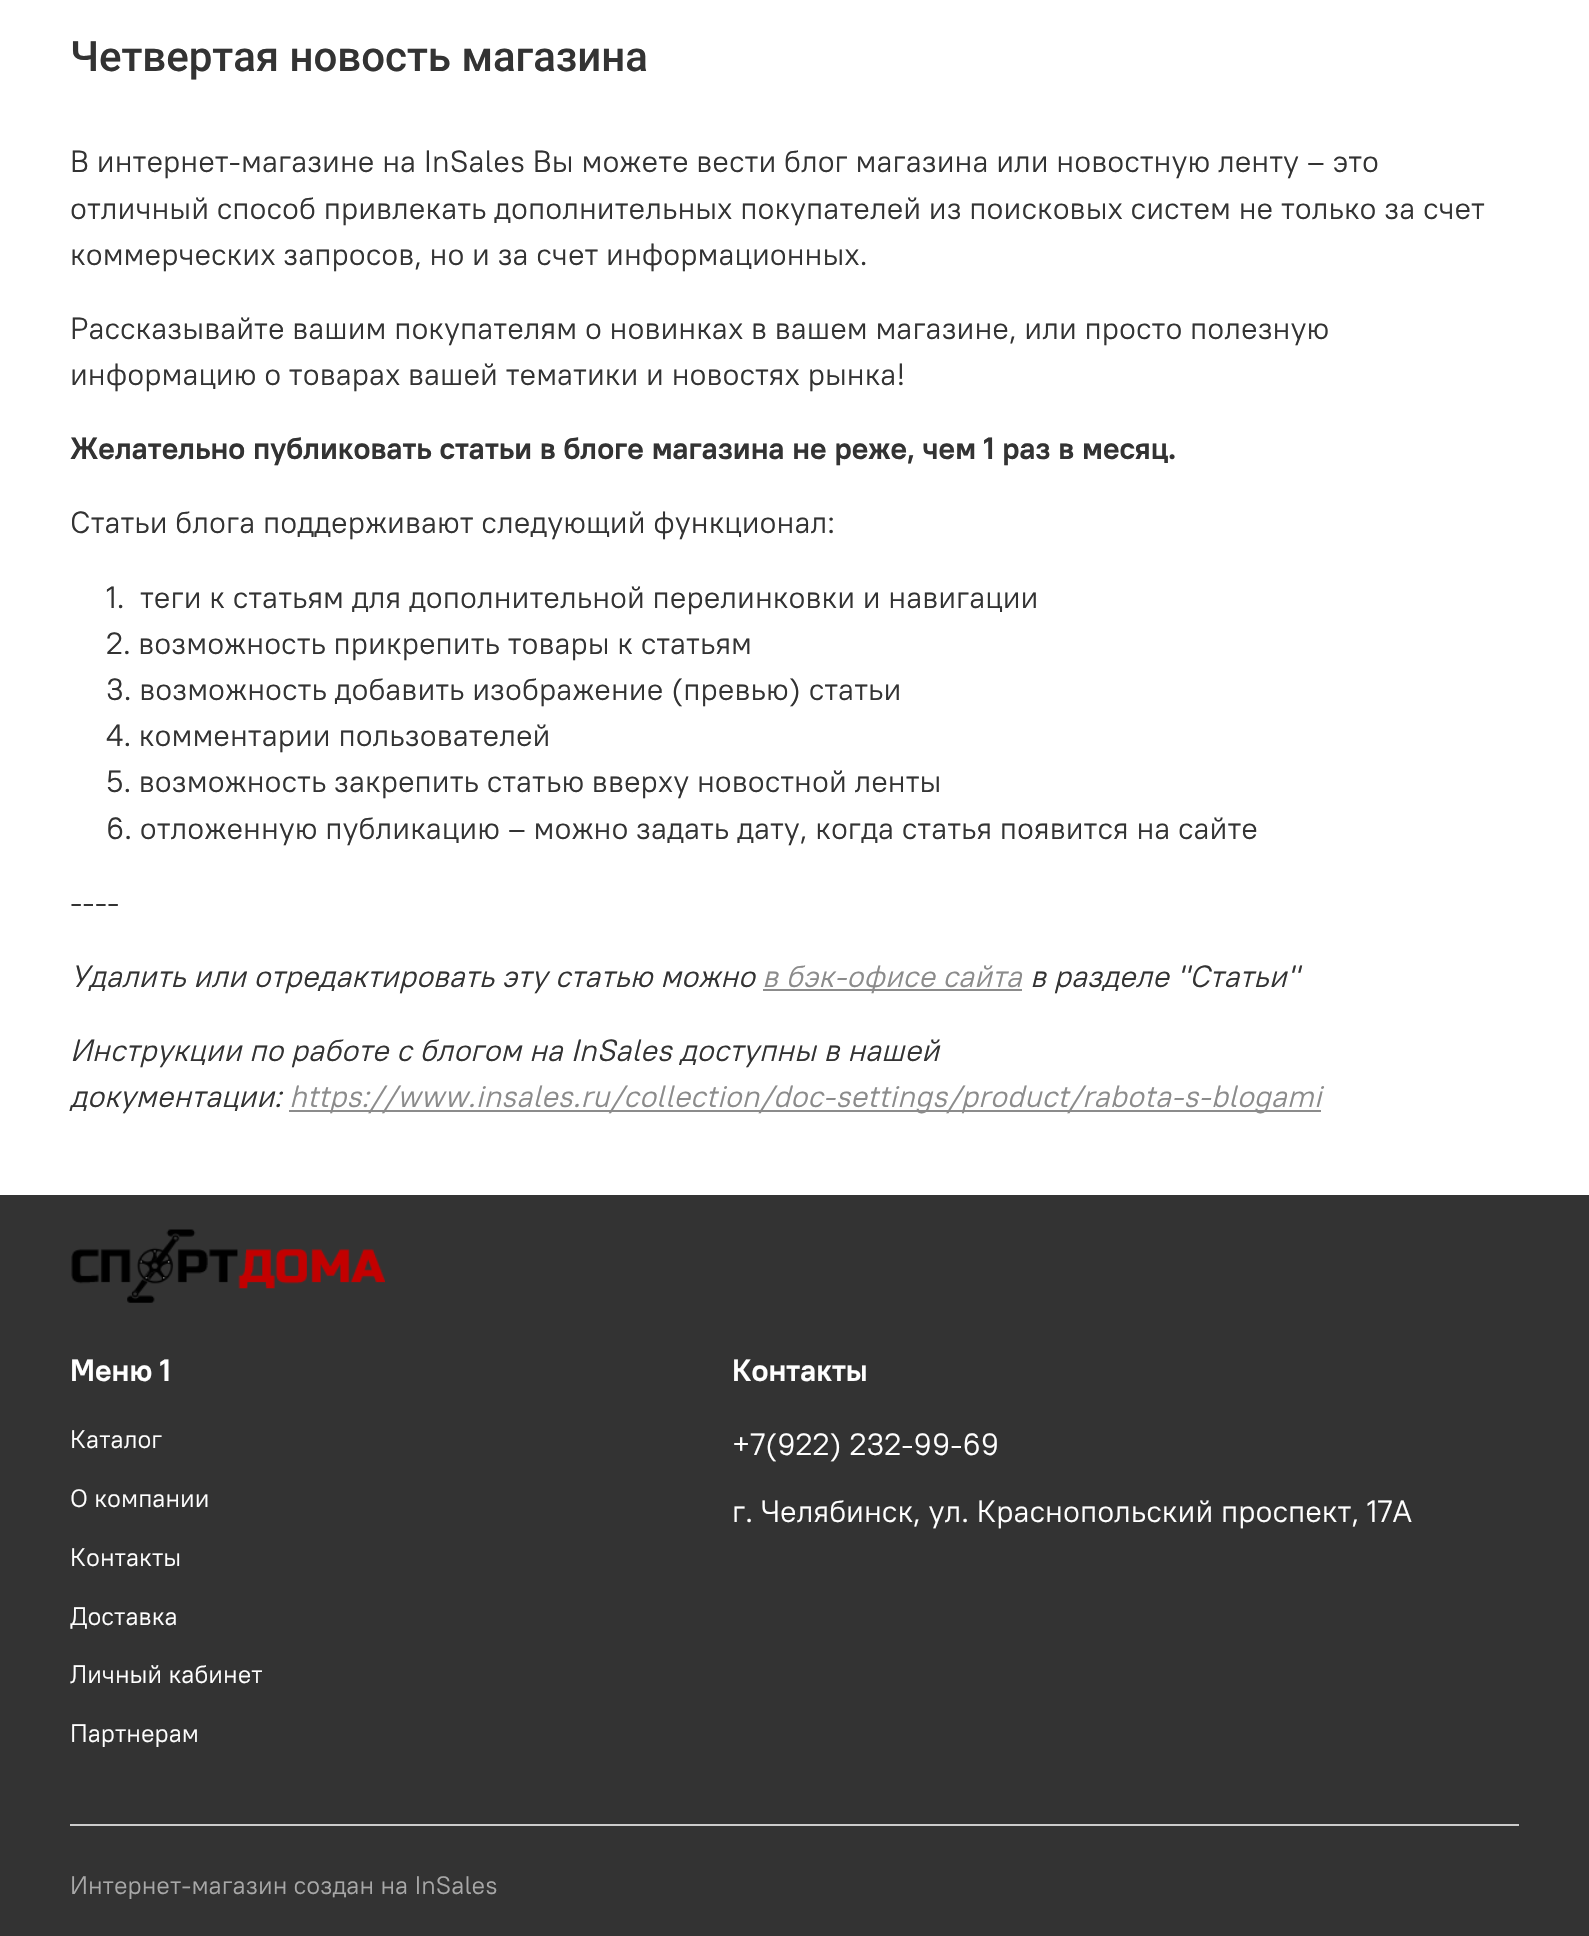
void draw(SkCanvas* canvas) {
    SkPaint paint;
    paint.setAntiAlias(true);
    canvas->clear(0xFFFFFFFF);
    SkFont font1(fontMgr->matchFamilyStyle("Roboto", SkFontStyle(500, SkFontStyle::kNormal_Width, SkFontStyle::kUpright_Slant)), 42);
    font1.setSubpixel(true);
    paint.setColor(0xFF333333);
    canvas->drawString("Четвертая новость магазина", 70, 71, font1, paint);
    SkFont font2(fontMgr->matchFamilyStyle("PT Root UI", SkFontStyle::Normal()), 30.8f);
    font2.setSubpixel(true);
    canvas->drawString("В интернет-магазине на InSales Вы можете вести блог магазина или новостную ленту – это", 70, 172, font2, paint);
    canvas->drawString("отличный способ привлекать дополнительных покупателей из поисковых систем не только за счет", 70, 219, font2, paint);
    canvas->drawString("коммерческих запросов, но и за счет информационных.", 70, 265, font2, paint);
    canvas->drawString("Рассказывайте вашим покупателям о новинках в вашем магазине, или просто полезную", 70, 339, font2, paint);
    canvas->drawString("информацию о товарах вашей тематики и новостях рынка!", 70, 385, font2, paint);
    SkFont font3(fontMgr->matchFamilyStyle("PT Root UI", SkFontStyle::Bold()), 30.8f);
    font3.setSubpixel(true);
    canvas->drawString("Желательно публиковать статьи в блоге магазина не реже, чем 1 раз в месяц.", 70, 459, font3, paint);
    canvas->drawString("Статьи блога поддерживают следующий функционал:", 70, 533, font2, paint);
    canvas->drawString("1.", 106, 608, font2, paint);
    canvas->drawString("теги к статьям для дополнительной перелинковки и навигации", 140, 608, font2, paint);
    canvas->drawString("2. возможность прикрепить товары к статьям", 106, 654, font2, paint);
    canvas->drawString("3. возможность добавить изображение (превью) статьи", 106, 700, font2, paint);
    canvas->drawString("4. комментарии пользователей", 106, 746, font2, paint);
    canvas->drawString("5. возможность закрепить статью вверху новостной ленты", 106, 792, font2, paint);
    canvas->drawString("6. отложенную публикацию – можно задать дату, когда статья появится на сайте", 106, 839, font2, paint);
    canvas->drawString("----", 70, 913, font2, paint);
    SkFont font4(fontMgr->matchFamilyStyle("PT Root UI", SkFontStyle::Italic()), 30.8f);
    font4.setSubpixel(true);
    canvas->drawString("Удалить или отредактировать эту статью можно", 70, 987, font4, paint);
    paint.setColor(0xFF8B8B8B);
    canvas->drawRect(SkRect::MakeXYWH(763, 989, 259, 2), paint);
    canvas->drawString("в бэк-офисе сайта", 762, 987, font4, paint);
    paint.setColor(0xFF333333);
    canvas->drawString("в разделе \"Статьи\"", 1030, 987, font4, paint);
    canvas->drawString("Инструкции по работе с блогом на InSales доступны в нашей", 70, 1061, font4, paint);
    canvas->drawString("документации:", 70, 1107, font4, paint);
    paint.setColor(0xFF8B8B8B);
    canvas->drawRect(SkRect::MakeXYWH(289, 1110, 1032, 2), paint);
    canvas->drawString("https://www.insales.ru/collection/doc-settings/product/rabota-s-blogami", 289, 1107, font4, paint);
    paint.setColor(0xFF333333);
    canvas->drawRect(SkRect::MakeXYWH(0, 1195, 1589, 741), paint);
    canvas->drawImageRect(SkImages::DeferredFromEncodedData(SkData::MakeFromFileName("img1.png")), SkRect::MakeXYWH(71, 1229, 314, 74), SkSamplingOptions());
    paint.setColor(0xFFFFFFFF);
    canvas->drawString("Меню 1", 70, 1381, font3, paint);
    SkFont font5(fontMgr->matchFamilyStyle("PT Root UI", SkFontStyle::Normal()), 25.25f);
    font5.setSubpixel(true);
    canvas->drawString("Каталог", 70, 1448, font5, paint);
    canvas->drawString("О компании", 70, 1507, font5, paint);
    canvas->drawString("Контакты", 70, 1566, font5, paint);
    canvas->drawString("Доставка", 70, 1625, font5, paint);
    canvas->drawString("Личный кабинет", 70, 1683, font5, paint);
    canvas->drawString("Партнерам", 70, 1742, font5, paint);
    canvas->drawString("Контакты", 732, 1381, font3, paint);
    canvas->drawString("+7(922) 232-99-69", 732, 1455, font2, paint);
    canvas->drawString("г. Челябинск, ул. Краснопольский проспект, 17А", 732, 1522, font2, paint);
    paint.setColor(0xFFCCCCCC);
    canvas->drawRect(SkRect::MakeXYWH(70, 1824, 1449, 2), paint);
    paint.setColor(0xFFA8A8A8);
    canvas->drawString("Интернет-магазин создан на InSales", 70, 1894, font5, paint);
}
